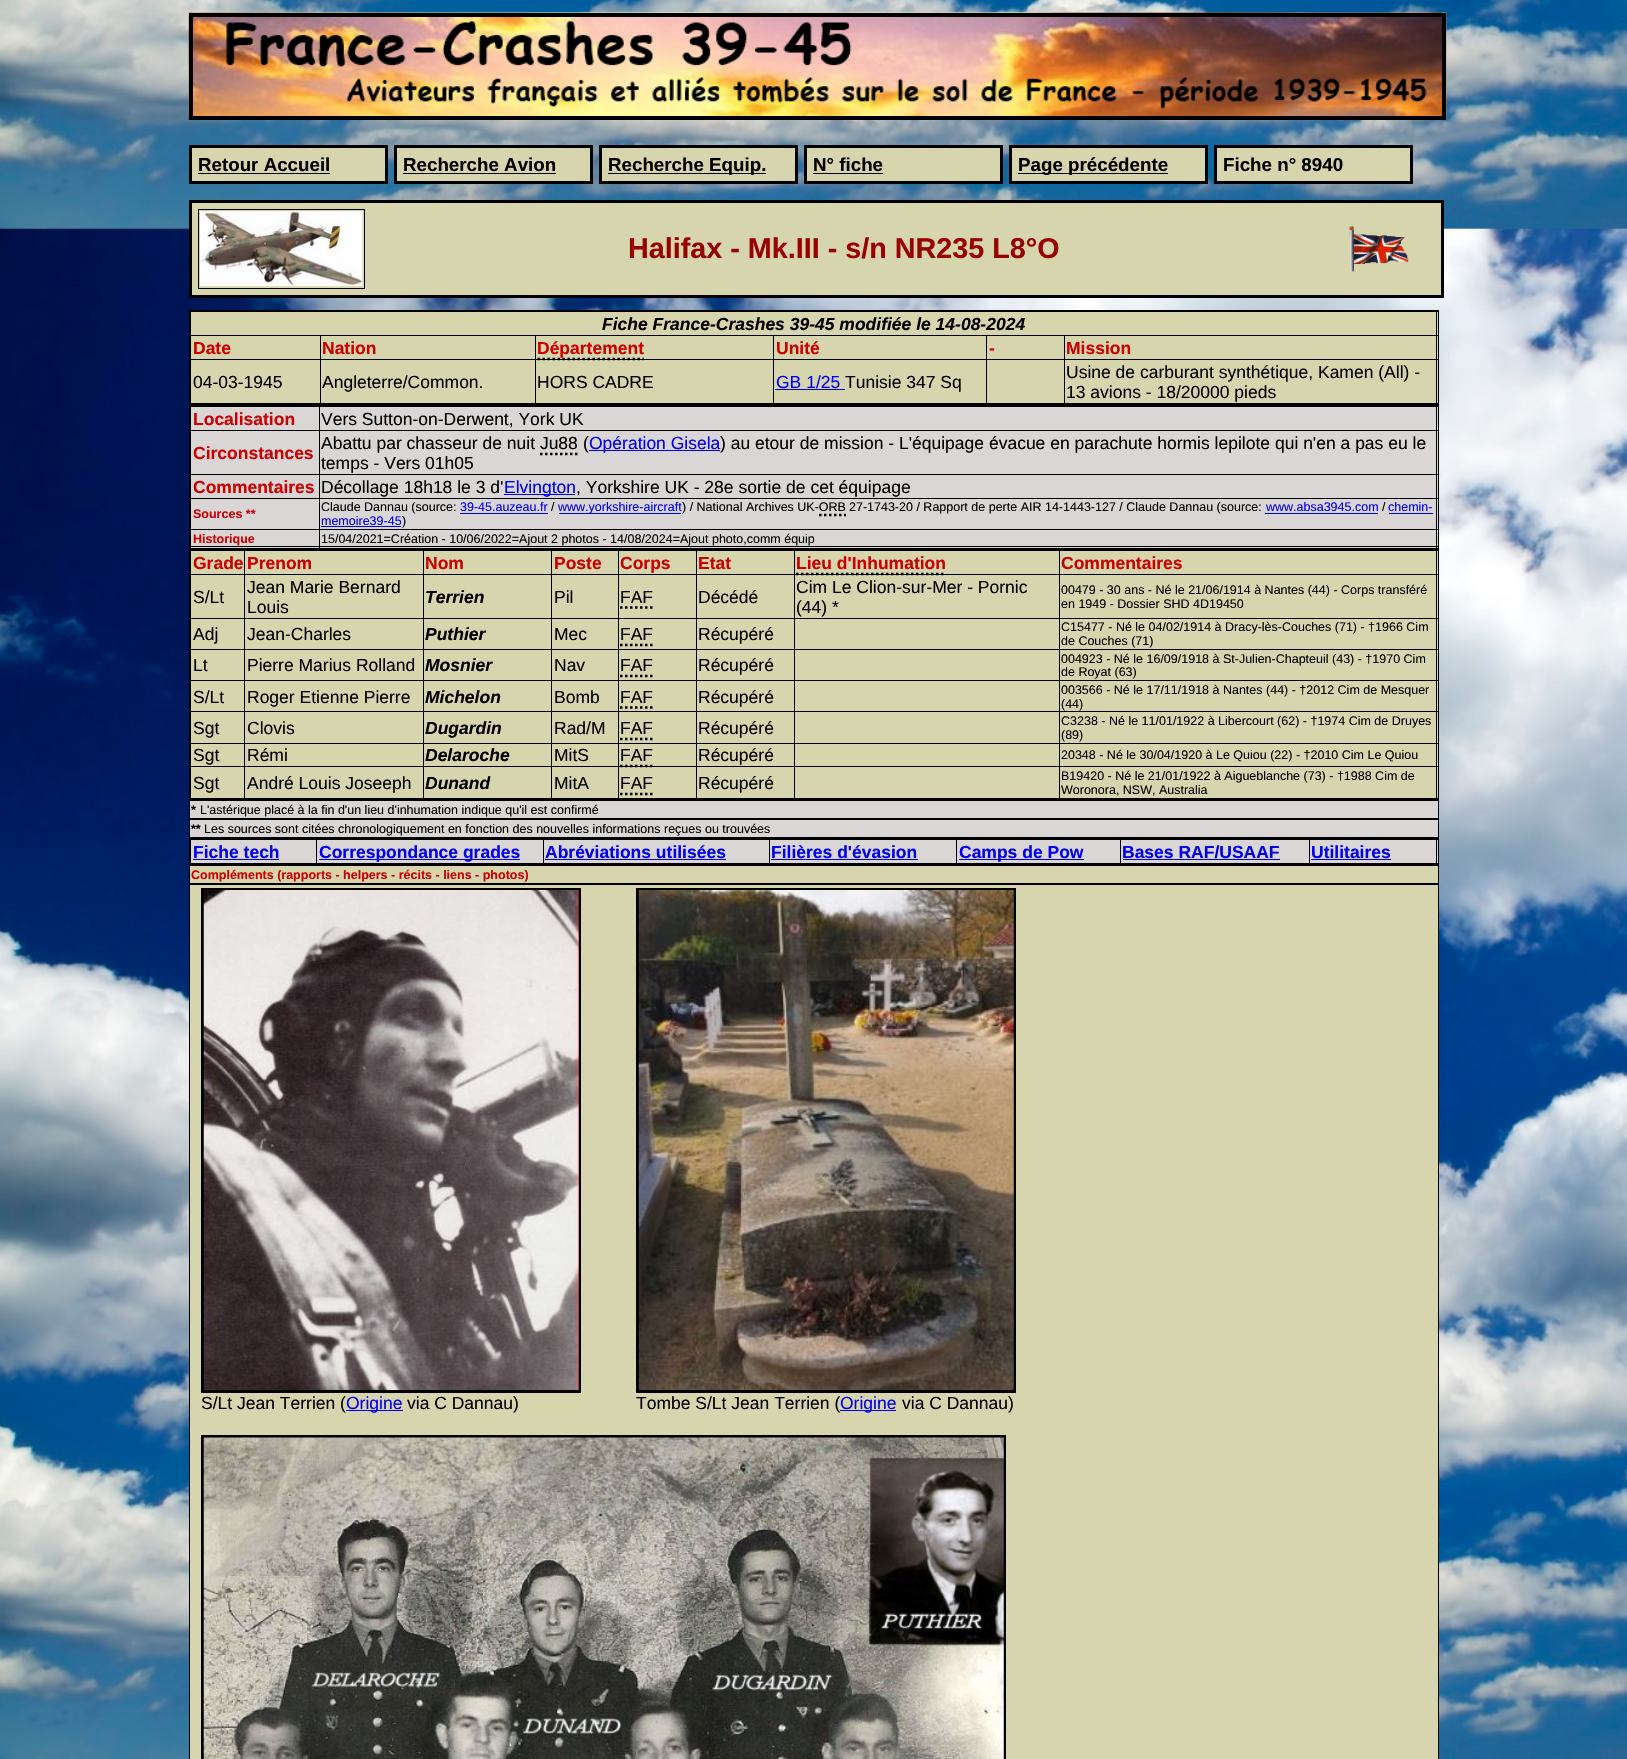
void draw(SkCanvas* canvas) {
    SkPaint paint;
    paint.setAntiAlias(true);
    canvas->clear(0xFFFFFFFF);
    canvas->drawImageRect(SkImages::DeferredFromEncodedData(SkData::MakeFromFileName("img1.png")), SkRect::MakeXYWH(0, 0, 1627, 1759), SkSamplingOptions());
    canvas->drawImageRect(SkImages::DeferredFromEncodedData(SkData::MakeFromFileName("img2.png")), SkRect::MakeXYWH(188, 12, 1259, 108), SkSamplingOptions());
    paint.setStyle(SkPaint::kStroke_Style);
    paint.setStrokeWidth(4);
    paint.setColor(0xFF000000);
    canvas->drawRect(SkRect::MakeXYWH(191, 15, 1253, 103), paint);
    paint.setStyle(SkPaint::kFill_Style);
    paint.setColor(0xFFD7D5AE);
    canvas->drawRect(SkRect::MakeXYWH(190.5f, 146.5f, 196, 36), paint);
    paint.setStyle(SkPaint::kStroke_Style);
    paint.setStrokeWidth(3);
    paint.setColor(0xFF000000);
    canvas->drawRect(SkRect::MakeXYWH(190.5f, 146.5f, 196, 36), paint);
    SkFont font1(fontMgr->matchFamilyStyle("Liberation Sans", SkFontStyle::Bold()), 18.75f);
    font1.setSubpixel(true);
    paint.setStyle(SkPaint::kFill_Style);
    canvas->drawString("Retour Accueil", 198, 171, font1, paint);
    canvas->drawRect(SkRect::MakeXYWH(198, 173, 132, 1), paint);
    paint.setColor(0xFFD7D5AE);
    canvas->drawRect(SkRect::MakeXYWH(395.5f, 146.5f, 196, 36), paint);
    paint.setStyle(SkPaint::kStroke_Style);
    paint.setColor(0xFF000000);
    canvas->drawRect(SkRect::MakeXYWH(395.5f, 146.5f, 196, 36), paint);
    paint.setStyle(SkPaint::kFill_Style);
    canvas->drawString("Recherche Avion", 403, 171, font1, paint);
    canvas->drawRect(SkRect::MakeXYWH(403, 173, 153, 1), paint);
    paint.setColor(0xFFD7D5AE);
    canvas->drawRect(SkRect::MakeXYWH(600.5f, 146.5f, 196, 36), paint);
    paint.setStyle(SkPaint::kStroke_Style);
    paint.setColor(0xFF000000);
    canvas->drawRect(SkRect::MakeXYWH(600.5f, 146.5f, 196, 36), paint);
    paint.setStyle(SkPaint::kFill_Style);
    canvas->drawRect(SkRect::MakeXYWH(608, 173, 158, 1), paint);
    canvas->drawString("Recherche Equip.", 608, 171, font1, paint);
    paint.setColor(0xFFD7D5AE);
    canvas->drawRect(SkRect::MakeXYWH(805.5f, 146.5f, 196, 36), paint);
    paint.setStyle(SkPaint::kStroke_Style);
    paint.setColor(0xFF000000);
    canvas->drawRect(SkRect::MakeXYWH(805.5f, 146.5f, 196, 36), paint);
    paint.setStyle(SkPaint::kFill_Style);
    canvas->drawString("N° fiche", 813, 171, font1, paint);
    canvas->drawRect(SkRect::MakeXYWH(813, 173, 70, 1), paint);
    paint.setColor(0xFFD7D5AE);
    canvas->drawRect(SkRect::MakeXYWH(1010.5f, 146.5f, 196, 36), paint);
    paint.setStyle(SkPaint::kStroke_Style);
    paint.setColor(0xFF000000);
    canvas->drawRect(SkRect::MakeXYWH(1010.5f, 146.5f, 196, 36), paint);
    paint.setStyle(SkPaint::kFill_Style);
    canvas->drawRect(SkRect::MakeXYWH(1018, 173, 150, 1), paint);
    canvas->drawString("Page précédente", 1018, 171, font1, paint);
    paint.setColor(0xFFD7D5AE);
    canvas->drawRect(SkRect::MakeXYWH(1215.5f, 146.5f, 196, 36), paint);
    paint.setStyle(SkPaint::kStroke_Style);
    paint.setColor(0xFF000000);
    canvas->drawRect(SkRect::MakeXYWH(1215.5f, 146.5f, 196, 36), paint);
    paint.setStyle(SkPaint::kFill_Style);
    canvas->drawString("Fiche n° 8940", 1223, 171, font1, paint);
    paint.setColor(0xFFD7D5AE);
    canvas->drawRect(SkRect::MakeXYWH(190.5f, 201.5f, 1252, 95), paint);
    paint.setStyle(SkPaint::kStroke_Style);
    paint.setColor(0xFF000000);
    canvas->drawRect(SkRect::MakeXYWH(190.5f, 201.5f, 1252, 95), paint);
    paint.setStyle(SkPaint::kFill_Style);
    canvas->drawRect(SkRect::MakeXYWH(198, 209, 167, 1), paint);
    canvas->drawRect(SkRect::MakeXYWH(364, 209, 1, 80), paint);
    canvas->drawRect(SkRect::MakeXYWH(198, 288, 167, 1), paint);
    canvas->drawRect(SkRect::MakeXYWH(198, 209, 1, 80), paint);
    canvas->drawImageRect(SkImages::DeferredFromEncodedData(SkData::MakeFromFileName("img3.png")), SkRect::MakeXYWH(200, 211, 163, 76), SkSamplingOptions());
    SkFont font2(fontMgr->matchFamilyStyle("Liberation Sans", SkFontStyle::Bold()), 28.75f);
    font2.setSubpixel(true);
    paint.setColor(0xFF990000);
    canvas->drawString("Halifax - Mk.III - s/n NR235 L8°O", 628, 258, font2, paint);
    canvas->drawImageRect(SkImages::DeferredFromEncodedData(SkData::MakeFromFileName("img4.png")), SkRect::MakeXYWH(1349, 226, 60, 46), SkSamplingOptions());
    paint.setColor(0xFFD7D5AE);
    canvas->drawRect(SkRect::MakeXYWH(191, 312, 1247, 91), paint);
    paint.setStyle(SkPaint::kStroke_Style);
    paint.setStrokeWidth(1);
    paint.setColor(0xFF000000);
    canvas->drawRect(SkRect::MakeXYWH(189.5f, 310.5f, 1249, 94), paint);
    paint.setStyle(SkPaint::kFill_Style);
    canvas->drawRect(SkRect::MakeXYWH(190, 311, 1248, 1), paint);
    canvas->drawRect(SkRect::MakeXYWH(1064, 335, 374, 1), paint);
    canvas->drawRect(SkRect::MakeXYWH(1064, 359, 374, 1), paint);
    canvas->drawRect(SkRect::MakeXYWH(1436, 359, 1, 45), paint);
    canvas->drawRect(SkRect::MakeXYWH(1436, 335, 1, 25), paint);
    canvas->drawRect(SkRect::MakeXYWH(1436, 311, 1, 25), paint);
    canvas->drawRect(SkRect::MakeXYWH(1064, 403, 374, 1), paint);
    canvas->drawRect(SkRect::MakeXYWH(1064, 359, 1, 45), paint);
    canvas->drawRect(SkRect::MakeXYWH(986, 359, 79, 1), paint);
    canvas->drawRect(SkRect::MakeXYWH(1064, 335, 1, 25), paint);
    canvas->drawRect(SkRect::MakeXYWH(986, 335, 79, 1), paint);
    canvas->drawRect(SkRect::MakeXYWH(986, 403, 79, 1), paint);
    canvas->drawRect(SkRect::MakeXYWH(986, 359, 1, 45), paint);
    canvas->drawRect(SkRect::MakeXYWH(773, 359, 215, 1), paint);
    canvas->drawRect(SkRect::MakeXYWH(986, 335, 1, 25), paint);
    canvas->drawRect(SkRect::MakeXYWH(773, 335, 215, 1), paint);
    canvas->drawRect(SkRect::MakeXYWH(773, 403, 215, 1), paint);
    canvas->drawRect(SkRect::MakeXYWH(773, 359, 1, 45), paint);
    canvas->drawRect(SkRect::MakeXYWH(535, 359, 239, 1), paint);
    canvas->drawRect(SkRect::MakeXYWH(773, 335, 1, 25), paint);
    canvas->drawRect(SkRect::MakeXYWH(535, 335, 239, 1), paint);
    canvas->drawRect(SkRect::MakeXYWH(535, 403, 239, 1), paint);
    canvas->drawRect(SkRect::MakeXYWH(535, 359, 1, 45), paint);
    canvas->drawRect(SkRect::MakeXYWH(320, 359, 216, 1), paint);
    canvas->drawRect(SkRect::MakeXYWH(535, 335, 1, 25), paint);
    canvas->drawRect(SkRect::MakeXYWH(320, 335, 216, 1), paint);
    canvas->drawRect(SkRect::MakeXYWH(320, 403, 216, 1), paint);
    canvas->drawRect(SkRect::MakeXYWH(320, 359, 1, 45), paint);
    canvas->drawRect(SkRect::MakeXYWH(190, 359, 131, 1), paint);
    canvas->drawRect(SkRect::MakeXYWH(320, 335, 1, 25), paint);
    canvas->drawRect(SkRect::MakeXYWH(190, 335, 131, 1), paint);
    canvas->drawRect(SkRect::MakeXYWH(190, 403, 131, 1), paint);
    canvas->drawRect(SkRect::MakeXYWH(190, 359, 1, 45), paint);
    canvas->drawRect(SkRect::MakeXYWH(190, 335, 1, 25), paint);
    canvas->drawRect(SkRect::MakeXYWH(190, 311, 1, 25), paint);
    SkFont font3(fontMgr->matchFamilyStyle("Liberation Sans", SkFontStyle::BoldItalic()), 17.5f);
    font3.setSubpixel(true);
    canvas->drawString("Fiche France-Crashes 39-45 modifiée le 14-08-2024", 602, 330, font3, paint);
    SkFont font4(fontMgr->matchFamilyStyle("Liberation Sans", SkFontStyle::Bold()), 17.5f);
    font4.setSubpixel(true);
    paint.setColor(0xFFCC0000);
    canvas->drawString("Date", 193, 354, font4, paint);
    canvas->drawString("Nation", 322, 354, font4, paint);
    paint.setStyle(SkPaint::kStroke_Style);
    paint.setStrokeWidth(2.5f);
    paint.setColor(0xFF000000);
    paint.setPathEffect(SkDashPathEffect::Make({{2.5f, 2.5f}}, 0));
    canvas->drawPath(SkPathBuilder().moveTo(537.5f, 359).lineTo(644, 359).detach(), paint);
    paint.setPathEffect(nullptr);
    paint.setStyle(SkPaint::kFill_Style);
    paint.setColor(0xFFCC0000);
    canvas->drawString("Département", 537, 354, font4, paint);
    canvas->drawString("Unité", 776, 354, font4, paint);
    canvas->drawString("-", 989, 354, font4, paint);
    canvas->drawString("Mission", 1066, 354, font4, paint);
    SkFont font5(fontMgr->matchFamilyStyle("Liberation Sans", SkFontStyle::Normal()), 17.5f);
    font5.setSubpixel(true);
    paint.setColor(0xFF000000);
    canvas->drawString("04-03-1945", 193, 388, font5, paint);
    canvas->drawString("Angleterre/Common.", 322, 388, font5, paint);
    canvas->drawString("HORS CADRE", 537, 388, font5, paint);
    paint.setColor(0xFF0000EE);
    canvas->drawString("GB 1/25", 776, 388, font5, paint);
    canvas->drawRect(SkRect::MakeXYWH(775, 389, 70, 1), paint);
    paint.setColor(0xFF000000);
    canvas->drawString("Tunisie 347 Sq", 845, 388, font5, paint);
    canvas->drawString("Usine de carburant synthétique, Kamen (All) -", 1066, 378, font5, paint);
    canvas->drawString("13 avions - 18/20000 pieds", 1066, 398, font5, paint);
    paint.setColor(0xFFDAD6D6);
    canvas->drawRect(SkRect::MakeXYWH(191, 407, 1247, 141), paint);
    paint.setStyle(SkPaint::kStroke_Style);
    paint.setStrokeWidth(1);
    paint.setColor(0xFF000000);
    canvas->drawRect(SkRect::MakeXYWH(189.5f, 405.5f, 1249, 143), paint);
    paint.setStyle(SkPaint::kFill_Style);
    canvas->drawRect(SkRect::MakeXYWH(319, 406, 1119, 1), paint);
    canvas->drawRect(SkRect::MakeXYWH(319, 430, 1119, 1), paint);
    canvas->drawRect(SkRect::MakeXYWH(319, 474, 1119, 1), paint);
    canvas->drawRect(SkRect::MakeXYWH(319, 498, 1119, 1), paint);
    canvas->drawRect(SkRect::MakeXYWH(319, 529, 1119, 1), paint);
    canvas->drawRect(SkRect::MakeXYWH(1436, 529, 1, 19), paint);
    canvas->drawRect(SkRect::MakeXYWH(319, 546, 1119, 1), paint);
    canvas->drawRect(SkRect::MakeXYWH(319, 529, 1, 19), paint);
    canvas->drawRect(SkRect::MakeXYWH(190, 529, 130, 1), paint);
    canvas->drawRect(SkRect::MakeXYWH(319, 498, 1, 32), paint);
    canvas->drawRect(SkRect::MakeXYWH(190, 498, 130, 1), paint);
    canvas->drawRect(SkRect::MakeXYWH(319, 474, 1, 25), paint);
    canvas->drawRect(SkRect::MakeXYWH(190, 474, 130, 1), paint);
    canvas->drawRect(SkRect::MakeXYWH(319, 430, 1, 45), paint);
    canvas->drawRect(SkRect::MakeXYWH(190, 430, 130, 1), paint);
    canvas->drawRect(SkRect::MakeXYWH(319, 406, 1, 25), paint);
    canvas->drawRect(SkRect::MakeXYWH(190, 406, 130, 1), paint);
    canvas->drawRect(SkRect::MakeXYWH(190, 546, 130, 1), paint);
    canvas->drawRect(SkRect::MakeXYWH(190, 529, 1, 19), paint);
    canvas->drawRect(SkRect::MakeXYWH(190, 498, 1, 32), paint);
    canvas->drawRect(SkRect::MakeXYWH(190, 474, 1, 25), paint);
    canvas->drawRect(SkRect::MakeXYWH(190, 430, 1, 45), paint);
    canvas->drawRect(SkRect::MakeXYWH(190, 406, 1, 25), paint);
    paint.setColor(0xFFCC0000);
    canvas->drawString("Localisation", 193, 425, font4, paint);
    paint.setColor(0xFF000000);
    canvas->drawRect(SkRect::MakeXYWH(1436, 498, 1, 32), paint);
    canvas->drawRect(SkRect::MakeXYWH(1436, 474, 1, 25), paint);
    canvas->drawRect(SkRect::MakeXYWH(1436, 430, 1, 45), paint);
    canvas->drawRect(SkRect::MakeXYWH(1436, 406, 1, 25), paint);
    canvas->drawString("Vers Sutton-on-Derwent, York UK", 321, 425, font5, paint);
    paint.setColor(0xFFCC0000);
    canvas->drawString("Circonstances", 193, 459, font4, paint);
    paint.setColor(0xFF000000);
    canvas->drawString("Abattu par chasseur de nuit Ju88", 321, 449, font5, paint);
    paint.setStyle(SkPaint::kStroke_Style);
    paint.setStrokeWidth(2.5f);
    paint.setPathEffect(SkDashPathEffect::Make({{2.5f, 2.5f}}, 0));
    canvas->drawPath(SkPathBuilder().moveTo(540, 454).lineTo(577.5f, 454).detach(), paint);
    paint.setPathEffect(nullptr);
    paint.setStyle(SkPaint::kFill_Style);
    canvas->drawString("(", 583, 449, font5, paint);
    paint.setColor(0xFF0000EE);
    canvas->drawRect(SkRect::MakeXYWH(589, 450, 131, 1), paint);
    canvas->drawString("Opération Gisela", 589, 449, font5, paint);
    paint.setColor(0xFF000000);
    canvas->drawString(") au etour de mission - L'équipage évacue en parachute hormis lepilote qui n'en a pas eu le", 720, 449, font5, paint);
    canvas->drawString("temps - Vers 01h05", 321, 469, font5, paint);
    paint.setColor(0xFFCC0000);
    canvas->drawString("Commentaires", 193, 493, font4, paint);
    paint.setColor(0xFF000000);
    canvas->drawString("Décollage 18h18 le 3 d'", 321, 493, font5, paint);
    paint.setColor(0xFF0000EE);
    canvas->drawRect(SkRect::MakeXYWH(504, 494, 71, 1), paint);
    canvas->drawString("Elvington", 504, 493, font5, paint);
    paint.setColor(0xFF000000);
    canvas->drawString(", Yorkshire UK - 28e sortie de cet équipage", 576, 493, font5, paint);
    SkFont font6(fontMgr->matchFamilyStyle("Liberation Sans", SkFontStyle::Bold()), 12.5f);
    font6.setSubpixel(true);
    paint.setColor(0xFFCC0000);
    canvas->drawString("Sources **", 193, 518, font6, paint);
    SkFont font7(fontMgr->matchFamilyStyle("Liberation Sans", SkFontStyle::Normal()), 12.5f);
    font7.setSubpixel(true);
    paint.setColor(0xFF000000);
    canvas->drawString("Claude Dannau (source:", 321, 511, font7, paint);
    paint.setColor(0xFF0000EE);
    canvas->drawString("39-45.auzeau.fr", 460, 511, font7, paint);
    canvas->drawRect(SkRect::MakeXYWH(460, 513, 88, 1), paint);
    paint.setColor(0xFF000000);
    canvas->drawString("/", 551, 511, font7, paint);
    paint.setColor(0xFF0000EE);
    canvas->drawRect(SkRect::MakeXYWH(559, 513, 122, 1), paint);
    canvas->drawString("www.yorkshire-aircraft", 558, 511, font7, paint);
    paint.setColor(0xFF000000);
    canvas->drawString(") / National Archives UK-ORB", 682, 511, font7, paint);
    paint.setStyle(SkPaint::kStroke_Style);
    paint.setPathEffect(SkDashPathEffect::Make({{2.5f, 2.5f}}, 0));
    canvas->drawPath(SkPathBuilder().moveTo(819, 515).lineTo(846, 515).detach(), paint);
    paint.setPathEffect(nullptr);
    paint.setStyle(SkPaint::kFill_Style);
    canvas->drawString("27-1743-20 / Rapport de perte AIR 14-1443-127 / Claude Dannau (source:", 849, 511, font7, paint);
    paint.setColor(0xFF0000EE);
    canvas->drawString("www.absa3945.com", 1266, 511, font7, paint);
    canvas->drawRect(SkRect::MakeXYWH(1265, 513, 113, 1), paint);
    paint.setColor(0xFF000000);
    canvas->drawString("/", 1382, 511, font7, paint);
    paint.setColor(0xFF0000EE);
    canvas->drawString("chemin-", 1388, 511, font7, paint);
    canvas->drawRect(SkRect::MakeXYWH(1389, 513, 44, 1), paint);
    canvas->drawString("memoire39-45", 321, 525, font7, paint);
    paint.setColor(0xFF000000);
    canvas->drawString(")", 402, 525, font7, paint);
    paint.setColor(0xFF0000EE);
    canvas->drawRect(SkRect::MakeXYWH(321, 526, 80, 1), paint);
    paint.setColor(0xFFCC0000);
    canvas->drawString("Historique", 193, 543, font6, paint);
    paint.setColor(0xFF000000);
    canvas->drawString("15/04/2021=Création - 10/06/2022=Ajout 2 photos - 14/08/2024=Ajout photo,comm équip", 321, 543, font7, paint);
    paint.setColor(0xFFD7D5AE);
    canvas->drawRect(SkRect::MakeXYWH(191, 551, 1247, 247), paint);
    paint.setStyle(SkPaint::kStroke_Style);
    paint.setStrokeWidth(1);
    paint.setColor(0xFF000000);
    canvas->drawRect(SkRect::MakeXYWH(189.5f, 549.5f, 1249, 250), paint);
    paint.setStyle(SkPaint::kFill_Style);
    canvas->drawRect(SkRect::MakeXYWH(1059, 550, 379, 1), paint);
    canvas->drawRect(SkRect::MakeXYWH(1059, 574, 379, 1), paint);
    canvas->drawRect(SkRect::MakeXYWH(1059, 618, 379, 1), paint);
    canvas->drawRect(SkRect::MakeXYWH(1059, 649, 379, 1), paint);
    canvas->drawRect(SkRect::MakeXYWH(1059, 680, 379, 1), paint);
    canvas->drawRect(SkRect::MakeXYWH(1059, 711, 379, 1), paint);
    canvas->drawRect(SkRect::MakeXYWH(1059, 743, 379, 1), paint);
    canvas->drawRect(SkRect::MakeXYWH(1059, 766, 379, 1), paint);
    canvas->drawRect(SkRect::MakeXYWH(1436, 766, 1, 33), paint);
    canvas->drawRect(SkRect::MakeXYWH(1059, 798, 379, 1), paint);
    canvas->drawRect(SkRect::MakeXYWH(1059, 766, 1, 33), paint);
    canvas->drawRect(SkRect::MakeXYWH(794, 766, 266, 1), paint);
    canvas->drawRect(SkRect::MakeXYWH(1059, 743, 1, 25), paint);
    canvas->drawRect(SkRect::MakeXYWH(794, 743, 266, 1), paint);
    canvas->drawRect(SkRect::MakeXYWH(1059, 711, 1, 33), paint);
    canvas->drawRect(SkRect::MakeXYWH(794, 711, 266, 1), paint);
    canvas->drawRect(SkRect::MakeXYWH(1059, 680, 1, 33), paint);
    canvas->drawRect(SkRect::MakeXYWH(794, 680, 266, 1), paint);
    canvas->drawRect(SkRect::MakeXYWH(1059, 649, 1, 32), paint);
    canvas->drawRect(SkRect::MakeXYWH(794, 649, 266, 1), paint);
    canvas->drawRect(SkRect::MakeXYWH(1059, 618, 1, 32), paint);
    canvas->drawRect(SkRect::MakeXYWH(794, 618, 266, 1), paint);
    canvas->drawRect(SkRect::MakeXYWH(1059, 574, 1, 45), paint);
    canvas->drawRect(SkRect::MakeXYWH(794, 574, 266, 1), paint);
    canvas->drawRect(SkRect::MakeXYWH(1059, 550, 1, 25), paint);
    canvas->drawRect(SkRect::MakeXYWH(794, 550, 266, 1), paint);
    canvas->drawRect(SkRect::MakeXYWH(794, 798, 266, 1), paint);
    canvas->drawRect(SkRect::MakeXYWH(794, 766, 1, 33), paint);
    canvas->drawRect(SkRect::MakeXYWH(696, 766, 99, 1), paint);
    canvas->drawRect(SkRect::MakeXYWH(794, 743, 1, 25), paint);
    canvas->drawRect(SkRect::MakeXYWH(696, 743, 99, 1), paint);
    canvas->drawRect(SkRect::MakeXYWH(794, 711, 1, 33), paint);
    canvas->drawRect(SkRect::MakeXYWH(696, 711, 99, 1), paint);
    canvas->drawRect(SkRect::MakeXYWH(794, 680, 1, 33), paint);
    canvas->drawRect(SkRect::MakeXYWH(696, 680, 99, 1), paint);
    canvas->drawRect(SkRect::MakeXYWH(794, 649, 1, 32), paint);
    canvas->drawRect(SkRect::MakeXYWH(696, 649, 99, 1), paint);
    canvas->drawRect(SkRect::MakeXYWH(794, 618, 1, 32), paint);
    canvas->drawRect(SkRect::MakeXYWH(696, 618, 99, 1), paint);
    canvas->drawRect(SkRect::MakeXYWH(794, 574, 1, 45), paint);
    canvas->drawRect(SkRect::MakeXYWH(696, 574, 99, 1), paint);
    canvas->drawRect(SkRect::MakeXYWH(794, 550, 1, 25), paint);
    canvas->drawRect(SkRect::MakeXYWH(696, 550, 99, 1), paint);
    canvas->drawRect(SkRect::MakeXYWH(696, 798, 99, 1), paint);
    canvas->drawRect(SkRect::MakeXYWH(696, 766, 1, 33), paint);
    canvas->drawRect(SkRect::MakeXYWH(618, 766, 80, 1), paint);
    canvas->drawRect(SkRect::MakeXYWH(696, 743, 1, 25), paint);
    canvas->drawRect(SkRect::MakeXYWH(618, 743, 80, 1), paint);
    canvas->drawRect(SkRect::MakeXYWH(696, 711, 1, 33), paint);
    canvas->drawRect(SkRect::MakeXYWH(618, 711, 80, 1), paint);
    canvas->drawRect(SkRect::MakeXYWH(696, 680, 1, 33), paint);
    canvas->drawRect(SkRect::MakeXYWH(618, 680, 80, 1), paint);
    canvas->drawRect(SkRect::MakeXYWH(696, 649, 1, 32), paint);
    canvas->drawRect(SkRect::MakeXYWH(618, 649, 80, 1), paint);
    canvas->drawRect(SkRect::MakeXYWH(696, 618, 1, 32), paint);
    canvas->drawRect(SkRect::MakeXYWH(618, 618, 80, 1), paint);
    canvas->drawRect(SkRect::MakeXYWH(696, 574, 1, 45), paint);
    canvas->drawRect(SkRect::MakeXYWH(618, 574, 80, 1), paint);
    canvas->drawRect(SkRect::MakeXYWH(696, 550, 1, 25), paint);
    canvas->drawRect(SkRect::MakeXYWH(618, 550, 80, 1), paint);
    canvas->drawRect(SkRect::MakeXYWH(618, 798, 80, 1), paint);
    canvas->drawRect(SkRect::MakeXYWH(618, 766, 1, 33), paint);
    canvas->drawRect(SkRect::MakeXYWH(551, 766, 68, 1), paint);
    canvas->drawRect(SkRect::MakeXYWH(618, 743, 1, 25), paint);
    canvas->drawRect(SkRect::MakeXYWH(551, 743, 68, 1), paint);
    canvas->drawRect(SkRect::MakeXYWH(618, 711, 1, 33), paint);
    canvas->drawRect(SkRect::MakeXYWH(551, 711, 68, 1), paint);
    canvas->drawRect(SkRect::MakeXYWH(618, 680, 1, 33), paint);
    canvas->drawRect(SkRect::MakeXYWH(551, 680, 68, 1), paint);
    canvas->drawRect(SkRect::MakeXYWH(618, 649, 1, 32), paint);
    canvas->drawRect(SkRect::MakeXYWH(551, 649, 68, 1), paint);
    canvas->drawRect(SkRect::MakeXYWH(618, 618, 1, 32), paint);
    canvas->drawRect(SkRect::MakeXYWH(551, 618, 68, 1), paint);
    canvas->drawRect(SkRect::MakeXYWH(618, 574, 1, 45), paint);
    canvas->drawRect(SkRect::MakeXYWH(551, 574, 68, 1), paint);
    canvas->drawRect(SkRect::MakeXYWH(618, 550, 1, 25), paint);
    canvas->drawRect(SkRect::MakeXYWH(551, 550, 68, 1), paint);
    canvas->drawRect(SkRect::MakeXYWH(551, 798, 68, 1), paint);
    canvas->drawRect(SkRect::MakeXYWH(551, 766, 1, 33), paint);
    canvas->drawRect(SkRect::MakeXYWH(423, 766, 130, 1), paint);
    canvas->drawRect(SkRect::MakeXYWH(551, 743, 1, 25), paint);
    canvas->drawRect(SkRect::MakeXYWH(423, 743, 130, 1), paint);
    canvas->drawRect(SkRect::MakeXYWH(551, 711, 1, 33), paint);
    canvas->drawRect(SkRect::MakeXYWH(423, 711, 130, 1), paint);
    canvas->drawRect(SkRect::MakeXYWH(551, 680, 1, 33), paint);
    canvas->drawRect(SkRect::MakeXYWH(423, 680, 130, 1), paint);
    canvas->drawRect(SkRect::MakeXYWH(551, 649, 1, 32), paint);
    canvas->drawRect(SkRect::MakeXYWH(423, 649, 130, 1), paint);
    canvas->drawRect(SkRect::MakeXYWH(551, 618, 1, 32), paint);
    canvas->drawRect(SkRect::MakeXYWH(423, 618, 130, 1), paint);
    canvas->drawRect(SkRect::MakeXYWH(551, 574, 1, 45), paint);
    canvas->drawRect(SkRect::MakeXYWH(423, 574, 130, 1), paint);
    canvas->drawRect(SkRect::MakeXYWH(551, 550, 1, 25), paint);
    canvas->drawRect(SkRect::MakeXYWH(423, 550, 130, 1), paint);
    canvas->drawRect(SkRect::MakeXYWH(423, 798, 130, 1), paint);
    canvas->drawRect(SkRect::MakeXYWH(423, 766, 1, 33), paint);
    canvas->drawRect(SkRect::MakeXYWH(244, 766, 180, 1), paint);
    canvas->drawRect(SkRect::MakeXYWH(423, 743, 1, 25), paint);
    canvas->drawRect(SkRect::MakeXYWH(244, 743, 180, 1), paint);
    canvas->drawRect(SkRect::MakeXYWH(423, 711, 1, 33), paint);
    canvas->drawRect(SkRect::MakeXYWH(244, 711, 180, 1), paint);
    canvas->drawRect(SkRect::MakeXYWH(423, 680, 1, 33), paint);
    canvas->drawRect(SkRect::MakeXYWH(244, 680, 180, 1), paint);
    canvas->drawRect(SkRect::MakeXYWH(423, 649, 1, 32), paint);
    canvas->drawRect(SkRect::MakeXYWH(244, 649, 180, 1), paint);
    canvas->drawRect(SkRect::MakeXYWH(423, 618, 1, 32), paint);
    canvas->drawRect(SkRect::MakeXYWH(244, 618, 180, 1), paint);
    canvas->drawRect(SkRect::MakeXYWH(423, 574, 1, 45), paint);
    canvas->drawRect(SkRect::MakeXYWH(244, 574, 180, 1), paint);
    canvas->drawRect(SkRect::MakeXYWH(423, 550, 1, 25), paint);
    canvas->drawRect(SkRect::MakeXYWH(244, 550, 180, 1), paint);
    canvas->drawRect(SkRect::MakeXYWH(244, 798, 180, 1), paint);
    canvas->drawRect(SkRect::MakeXYWH(244, 766, 1, 33), paint);
    canvas->drawRect(SkRect::MakeXYWH(190, 766, 55, 1), paint);
    canvas->drawRect(SkRect::MakeXYWH(244, 743, 1, 25), paint);
    canvas->drawRect(SkRect::MakeXYWH(190, 743, 55, 1), paint);
    canvas->drawRect(SkRect::MakeXYWH(244, 711, 1, 33), paint);
    canvas->drawRect(SkRect::MakeXYWH(190, 711, 55, 1), paint);
    canvas->drawRect(SkRect::MakeXYWH(244, 680, 1, 33), paint);
    canvas->drawRect(SkRect::MakeXYWH(190, 680, 55, 1), paint);
    canvas->drawRect(SkRect::MakeXYWH(244, 649, 1, 32), paint);
    canvas->drawRect(SkRect::MakeXYWH(190, 649, 55, 1), paint);
    canvas->drawRect(SkRect::MakeXYWH(244, 618, 1, 32), paint);
    canvas->drawRect(SkRect::MakeXYWH(190, 618, 55, 1), paint);
    canvas->drawRect(SkRect::MakeXYWH(244, 574, 1, 45), paint);
    canvas->drawRect(SkRect::MakeXYWH(190, 574, 55, 1), paint);
    canvas->drawRect(SkRect::MakeXYWH(244, 550, 1, 25), paint);
    canvas->drawRect(SkRect::MakeXYWH(190, 550, 55, 1), paint);
    canvas->drawRect(SkRect::MakeXYWH(190, 798, 55, 1), paint);
    canvas->drawRect(SkRect::MakeXYWH(190, 766, 1, 33), paint);
    canvas->drawRect(SkRect::MakeXYWH(190, 743, 1, 25), paint);
    canvas->drawRect(SkRect::MakeXYWH(190, 711, 1, 33), paint);
    canvas->drawRect(SkRect::MakeXYWH(190, 680, 1, 33), paint);
    canvas->drawRect(SkRect::MakeXYWH(190, 649, 1, 32), paint);
    canvas->drawRect(SkRect::MakeXYWH(190, 618, 1, 32), paint);
    canvas->drawRect(SkRect::MakeXYWH(190, 574, 1, 45), paint);
    canvas->drawRect(SkRect::MakeXYWH(190, 550, 1, 25), paint);
    paint.setColor(0xFFCC0000);
    canvas->drawString("Grade", 193, 569, font4, paint);
    canvas->drawString("Prenom", 247, 569, font4, paint);
    canvas->drawString("Nom", 425, 569, font4, paint);
    canvas->drawString("Poste", 554, 569, font4, paint);
    canvas->drawString("Corps", 620, 569, font4, paint);
    canvas->drawString("Etat", 698, 569, font4, paint);
    canvas->drawString("Lieu d'Inhumation", 796, 569, font4, paint);
    paint.setStyle(SkPaint::kStroke_Style);
    paint.setStrokeWidth(2.5f);
    paint.setColor(0xFF000000);
    paint.setPathEffect(SkDashPathEffect::Make({{2.5f, 2.5f}}, 0));
    canvas->drawPath(SkPathBuilder().moveTo(796, 574).lineTo(946, 574).detach(), paint);
    paint.setPathEffect(nullptr);
    paint.setStyle(SkPaint::kFill_Style);
    canvas->drawRect(SkRect::MakeXYWH(1436, 743, 1, 25), paint);
    canvas->drawRect(SkRect::MakeXYWH(1436, 711, 1, 33), paint);
    canvas->drawRect(SkRect::MakeXYWH(1436, 680, 1, 33), paint);
    canvas->drawRect(SkRect::MakeXYWH(1436, 649, 1, 32), paint);
    canvas->drawRect(SkRect::MakeXYWH(1436, 618, 1, 32), paint);
    canvas->drawRect(SkRect::MakeXYWH(1436, 574, 1, 45), paint);
    canvas->drawRect(SkRect::MakeXYWH(1436, 550, 1, 25), paint);
    paint.setColor(0xFFCC0000);
    canvas->drawString("Commentaires", 1061, 569, font4, paint);
    paint.setColor(0xFF000000);
    canvas->drawString("S/Lt", 193, 603, font5, paint);
    canvas->drawString("Jean Marie Bernard", 247, 593, font5, paint);
    canvas->drawString("Louis", 247, 613, font5, paint);
    canvas->drawString("Terrien", 425, 603, font3, paint);
    canvas->drawString("Pil", 554, 603, font5, paint);
    canvas->drawString("FAF", 620, 603, font5, paint);
    paint.setStyle(SkPaint::kStroke_Style);
    paint.setPathEffect(SkDashPathEffect::Make({{2.5f, 2.5f}}, 0));
    canvas->drawPath(SkPathBuilder().moveTo(620, 607.5f).lineTo(652.5f, 607.5f).detach(), paint);
    paint.setPathEffect(nullptr);
    paint.setStyle(SkPaint::kFill_Style);
    canvas->drawString("Décédé", 698, 603, font5, paint);
    canvas->drawString("Cim Le Clion-sur-Mer - Pornic", 796, 593, font5, paint);
    canvas->drawString("(44) *", 796, 613, font5, paint);
    canvas->drawString("00479 - 30 ans - Né le 21/06/1914 à Nantes (44) - Corps transféré", 1061, 594, font7, paint);
    canvas->drawString("en 1949 - Dossier SHD 4D19450", 1061, 608, font7, paint);
    canvas->drawString("Adj", 193, 640, font5, paint);
    canvas->drawString("Jean-Charles", 247, 640, font5, paint);
    canvas->drawString("Puthier", 425, 640, font3, paint);
    canvas->drawString("Mec", 554, 640, font5, paint);
    canvas->drawString("FAF", 620, 640, font5, paint);
    paint.setStyle(SkPaint::kStroke_Style);
    paint.setPathEffect(SkDashPathEffect::Make({{2.5f, 2.5f}}, 0));
    canvas->drawPath(SkPathBuilder().moveTo(620, 645).lineTo(652.5f, 645).detach(), paint);
    paint.setPathEffect(nullptr);
    paint.setStyle(SkPaint::kFill_Style);
    canvas->drawString("Récupéré", 698, 640, font5, paint);
    canvas->drawString("C15477 - Né le 04/02/1914 à Dracy-lès-Couches (71) - †1966 Cim", 1061, 631, font7, paint);
    canvas->drawString("de Couches (71)", 1061, 645, font7, paint);
    canvas->drawString("Lt", 193, 671, font5, paint);
    canvas->drawString("Pierre Marius Rolland", 247, 671, font5, paint);
    canvas->drawString("Mosnier", 425, 671, font3, paint);
    canvas->drawString("Nav", 554, 671, font5, paint);
    canvas->drawString("FAF", 620, 671, font5, paint);
    paint.setStyle(SkPaint::kStroke_Style);
    paint.setPathEffect(SkDashPathEffect::Make({{2.5f, 2.5f}}, 0));
    canvas->drawPath(SkPathBuilder().moveTo(620, 676).lineTo(652.5f, 676).detach(), paint);
    paint.setPathEffect(nullptr);
    paint.setStyle(SkPaint::kFill_Style);
    canvas->drawString("Récupéré", 698, 671, font5, paint);
    canvas->drawString("004923 - Né le 16/09/1918 à St-Julien-Chapteuil (43) - †1970 Cim", 1061, 663, font7, paint);
    canvas->drawString("de Royat (63)", 1061, 676, font7, paint);
    canvas->drawString("S/Lt", 193, 703, font5, paint);
    canvas->drawString("Roger Etienne Pierre", 247, 703, font5, paint);
    canvas->drawString("Michelon", 425, 703, font3, paint);
    canvas->drawString("Bomb", 554, 703, font5, paint);
    canvas->drawString("FAF", 620, 703, font5, paint);
    paint.setStyle(SkPaint::kStroke_Style);
    paint.setPathEffect(SkDashPathEffect::Make({{2.5f, 2.5f}}, 0));
    canvas->drawPath(SkPathBuilder().moveTo(620, 707.5f).lineTo(652.5f, 707.5f).detach(), paint);
    paint.setPathEffect(nullptr);
    paint.setStyle(SkPaint::kFill_Style);
    canvas->drawString("Récupéré", 698, 703, font5, paint);
    canvas->drawString("003566 - Né le 17/11/1918 à Nantes (44) - †2012 Cim de Mesquer", 1061, 694, font7, paint);
    canvas->drawString("(44)", 1061, 708, font7, paint);
    canvas->drawString("Sgt", 193, 734, font5, paint);
    canvas->drawString("Clovis", 247, 734, font5, paint);
    canvas->drawString("Dugardin", 425, 734, font3, paint);
    canvas->drawString("Rad/M", 554, 734, font5, paint);
    canvas->drawString("FAF", 620, 734, font5, paint);
    paint.setStyle(SkPaint::kStroke_Style);
    paint.setPathEffect(SkDashPathEffect::Make({{2.5f, 2.5f}}, 0));
    canvas->drawPath(SkPathBuilder().moveTo(620, 739).lineTo(652.5f, 739).detach(), paint);
    paint.setPathEffect(nullptr);
    paint.setStyle(SkPaint::kFill_Style);
    canvas->drawString("Récupéré", 698, 734, font5, paint);
    canvas->drawString("C3238 - Né le 11/01/1922 à Libercourt (62) - †1974 Cim de Druyes", 1061, 725, font7, paint);
    canvas->drawString("(89)", 1061, 739, font7, paint);
    canvas->drawString("Sgt", 193, 761, font5, paint);
    canvas->drawString("Rémi", 247, 761, font5, paint);
    canvas->drawString("Delaroche", 425, 761, font3, paint);
    canvas->drawString("MitS", 554, 761, font5, paint);
    canvas->drawString("FAF", 620, 761, font5, paint);
    paint.setStyle(SkPaint::kStroke_Style);
    paint.setPathEffect(SkDashPathEffect::Make({{2.5f, 2.5f}}, 0));
    canvas->drawPath(SkPathBuilder().moveTo(620, 766).lineTo(652.5f, 766).detach(), paint);
    paint.setPathEffect(nullptr);
    paint.setStyle(SkPaint::kFill_Style);
    canvas->drawString("Récupéré", 698, 761, font5, paint);
    canvas->drawString("20348 - Né le 30/04/1920 à Le Quiou (22) - †2010 Cim Le Quiou", 1061, 759, font7, paint);
    canvas->drawString("Sgt", 193, 789, font5, paint);
    canvas->drawString("André Louis Joseeph", 247, 789, font5, paint);
    canvas->drawString("Dunand", 425, 789, font3, paint);
    canvas->drawString("MitA", 554, 789, font5, paint);
    canvas->drawString("FAF", 620, 789, font5, paint);
    paint.setStyle(SkPaint::kStroke_Style);
    paint.setPathEffect(SkDashPathEffect::Make({{2.5f, 2.5f}}, 0));
    canvas->drawPath(SkPathBuilder().moveTo(620, 794).lineTo(652.5f, 794).detach(), paint);
    paint.setPathEffect(nullptr);
    paint.setStyle(SkPaint::kFill_Style);
    canvas->drawString("Récupéré", 698, 789, font5, paint);
    canvas->drawString("B19420 - Né le 21/01/1922 à Aigueblanche (73) - †1988 Cim de", 1061, 780, font7, paint);
    canvas->drawString("Woronora, NSW, Australia", 1061, 794, font7, paint);
    paint.setColor(0xFFDAD6D6);
    canvas->drawRect(SkRect::MakeXYWH(189.5f, 800.5f, 1249, 18), paint);
    paint.setStyle(SkPaint::kStroke_Style);
    paint.setStrokeWidth(1);
    paint.setColor(0xFF000000);
    canvas->drawRect(SkRect::MakeXYWH(189.5f, 800.5f, 1249, 18), paint);
    paint.setStyle(SkPaint::kFill_Style);
    canvas->drawString("*", 191, 814, font6, paint);
    canvas->drawString("L'astérique placé à la fin d'un lieu d'inhumation indique qu'il est confirmé", 200, 814, font7, paint);
    paint.setColor(0xFFDAD6D6);
    canvas->drawRect(SkRect::MakeXYWH(189.5f, 819.5f, 1249, 18), paint);
    paint.setStyle(SkPaint::kStroke_Style);
    paint.setColor(0xFF000000);
    canvas->drawRect(SkRect::MakeXYWH(189.5f, 819.5f, 1249, 18), paint);
    paint.setStyle(SkPaint::kFill_Style);
    canvas->drawString("**", 191, 833, font6, paint);
    canvas->drawString("Les sources sont citées chronologiquement en fonction des nouvelles informations reçues ou trouvées", 204, 833, font7, paint);
    paint.setColor(0xFFDAD6D6);
    canvas->drawRect(SkRect::MakeXYWH(191, 840, 1247, 23), paint);
    paint.setStyle(SkPaint::kStroke_Style);
    paint.setColor(0xFF000000);
    canvas->drawRect(SkRect::MakeXYWH(189.5f, 838.5f, 1249, 26), paint);
    paint.setStyle(SkPaint::kFill_Style);
    canvas->drawRect(SkRect::MakeXYWH(1309, 839, 129, 1), paint);
    canvas->drawRect(SkRect::MakeXYWH(1436, 839, 1, 25), paint);
    canvas->drawRect(SkRect::MakeXYWH(1309, 863, 129, 1), paint);
    canvas->drawRect(SkRect::MakeXYWH(1309, 839, 1, 25), paint);
    canvas->drawRect(SkRect::MakeXYWH(1120, 839, 190, 1), paint);
    canvas->drawRect(SkRect::MakeXYWH(1120, 863, 190, 1), paint);
    canvas->drawRect(SkRect::MakeXYWH(1120, 839, 1, 25), paint);
    canvas->drawRect(SkRect::MakeXYWH(956, 839, 165, 1), paint);
    canvas->drawRect(SkRect::MakeXYWH(956, 863, 165, 1), paint);
    canvas->drawRect(SkRect::MakeXYWH(956, 839, 1, 25), paint);
    canvas->drawRect(SkRect::MakeXYWH(769, 839, 189, 1), paint);
    canvas->drawRect(SkRect::MakeXYWH(769, 863, 189, 1), paint);
    canvas->drawRect(SkRect::MakeXYWH(769, 839, 1, 25), paint);
    canvas->drawRect(SkRect::MakeXYWH(543, 839, 227, 1), paint);
    canvas->drawRect(SkRect::MakeXYWH(543, 863, 227, 1), paint);
    canvas->drawRect(SkRect::MakeXYWH(543, 839, 1, 25), paint);
    canvas->drawRect(SkRect::MakeXYWH(316, 839, 228, 1), paint);
    canvas->drawRect(SkRect::MakeXYWH(316, 863, 228, 1), paint);
    canvas->drawRect(SkRect::MakeXYWH(316, 839, 1, 25), paint);
    canvas->drawRect(SkRect::MakeXYWH(190, 839, 128, 1), paint);
    canvas->drawRect(SkRect::MakeXYWH(190, 863, 128, 1), paint);
    canvas->drawRect(SkRect::MakeXYWH(190, 839, 1, 25), paint);
    paint.setColor(0xFF0000EE);
    canvas->drawString("Fiche tech", 193, 858, font4, paint);
    canvas->drawRect(SkRect::MakeXYWH(193, 859, 86, 1), paint);
    canvas->drawRect(SkRect::MakeXYWH(319, 859, 201, 1), paint);
    canvas->drawString("Correspondance grades", 319, 858, font4, paint);
    canvas->drawString("Abréviations utilisées", 545, 858, font4, paint);
    canvas->drawRect(SkRect::MakeXYWH(545, 859, 181, 1), paint);
    canvas->drawString("Filières d'évasion", 771, 858, font4, paint);
    canvas->drawRect(SkRect::MakeXYWH(771, 859, 147, 1), paint);
    canvas->drawRect(SkRect::MakeXYWH(959, 859, 125, 1), paint);
    canvas->drawString("Camps de Pow", 959, 858, font4, paint);
    canvas->drawString("Bases RAF/USAAF", 1122, 858, font4, paint);
    canvas->drawRect(SkRect::MakeXYWH(1123, 859, 157, 1), paint);
    canvas->drawString("Utilitaires", 1311, 858, font4, paint);
    canvas->drawRect(SkRect::MakeXYWH(1311, 859, 80, 1), paint);
    paint.setColor(0xFFD7D5AE);
    canvas->drawRect(SkRect::MakeXYWH(189.5f, 865.5f, 1249, 18), paint);
    paint.setStyle(SkPaint::kStroke_Style);
    paint.setColor(0xFF000000);
    canvas->drawRect(SkRect::MakeXYWH(189.5f, 865.5f, 1249, 18), paint);
    paint.setStyle(SkPaint::kFill_Style);
    paint.setColor(0xFFCC0000);
    canvas->drawString("Compléments (rapports - helpers - récits - liens - photos)", 191, 879, font6, paint);
    paint.setColor(0xFFD7D5AE);
    canvas->drawRect(SkRect::MakeXYWH(189.5f, 884.5f, 1249, 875), paint);
    paint.setStyle(SkPaint::kStroke_Style);
    paint.setColor(0xFF000000);
    canvas->drawRect(SkRect::MakeXYWH(189.5f, 884.5f, 1249, 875), paint);
    paint.setStrokeWidth(3);
    canvas->drawRect(SkRect::MakeXYWH(202.5f, 889.5f, 377, 502), paint);
    canvas->drawImageRect(SkImages::DeferredFromEncodedData(SkData::MakeFromFileName("img5.png")), SkRect::MakeXYWH(203, 890, 376, 500), SkSamplingOptions());
    paint.setStyle(SkPaint::kFill_Style);
    canvas->drawString("S/Lt Jean Terrien (", 201, 1409, font5, paint);
    paint.setColor(0xFF0000EE);
    canvas->drawRect(SkRect::MakeXYWH(346, 1410, 57, 1), paint);
    canvas->drawString("Origine", 346, 1409, font5, paint);
    paint.setColor(0xFF000000);
    canvas->drawString("via C Dannau)", 407, 1409, font5, paint);
    paint.setStyle(SkPaint::kStroke_Style);
    canvas->drawRect(SkRect::MakeXYWH(637.5f, 889.5f, 377, 502), paint);
    canvas->drawImageRect(SkImages::DeferredFromEncodedData(SkData::MakeFromFileName("img6.png")), SkRect::MakeXYWH(638, 890, 376, 500), SkSamplingOptions());
    paint.setStyle(SkPaint::kFill_Style);
    canvas->drawString("Tombe S/Lt Jean Terrien (", 636, 1409, font5, paint);
    paint.setColor(0xFF0000EE);
    canvas->drawRect(SkRect::MakeXYWH(840, 1410, 56, 1), paint);
    canvas->drawString("Origine", 840, 1409, font5, paint);
    paint.setColor(0xFF000000);
    canvas->drawString("via C Dannau)", 902, 1409, font5, paint);
    paint.setStyle(SkPaint::kStroke_Style);
    canvas->drawRect(SkRect::MakeXYWH(202.5f, 1436.5f, 802, 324), paint);
    canvas->drawImageRect(SkImages::DeferredFromEncodedData(SkData::MakeFromFileName("img7.png")), SkRect::MakeXYWH(203, 1437, 801, 322), SkSamplingOptions());
}
